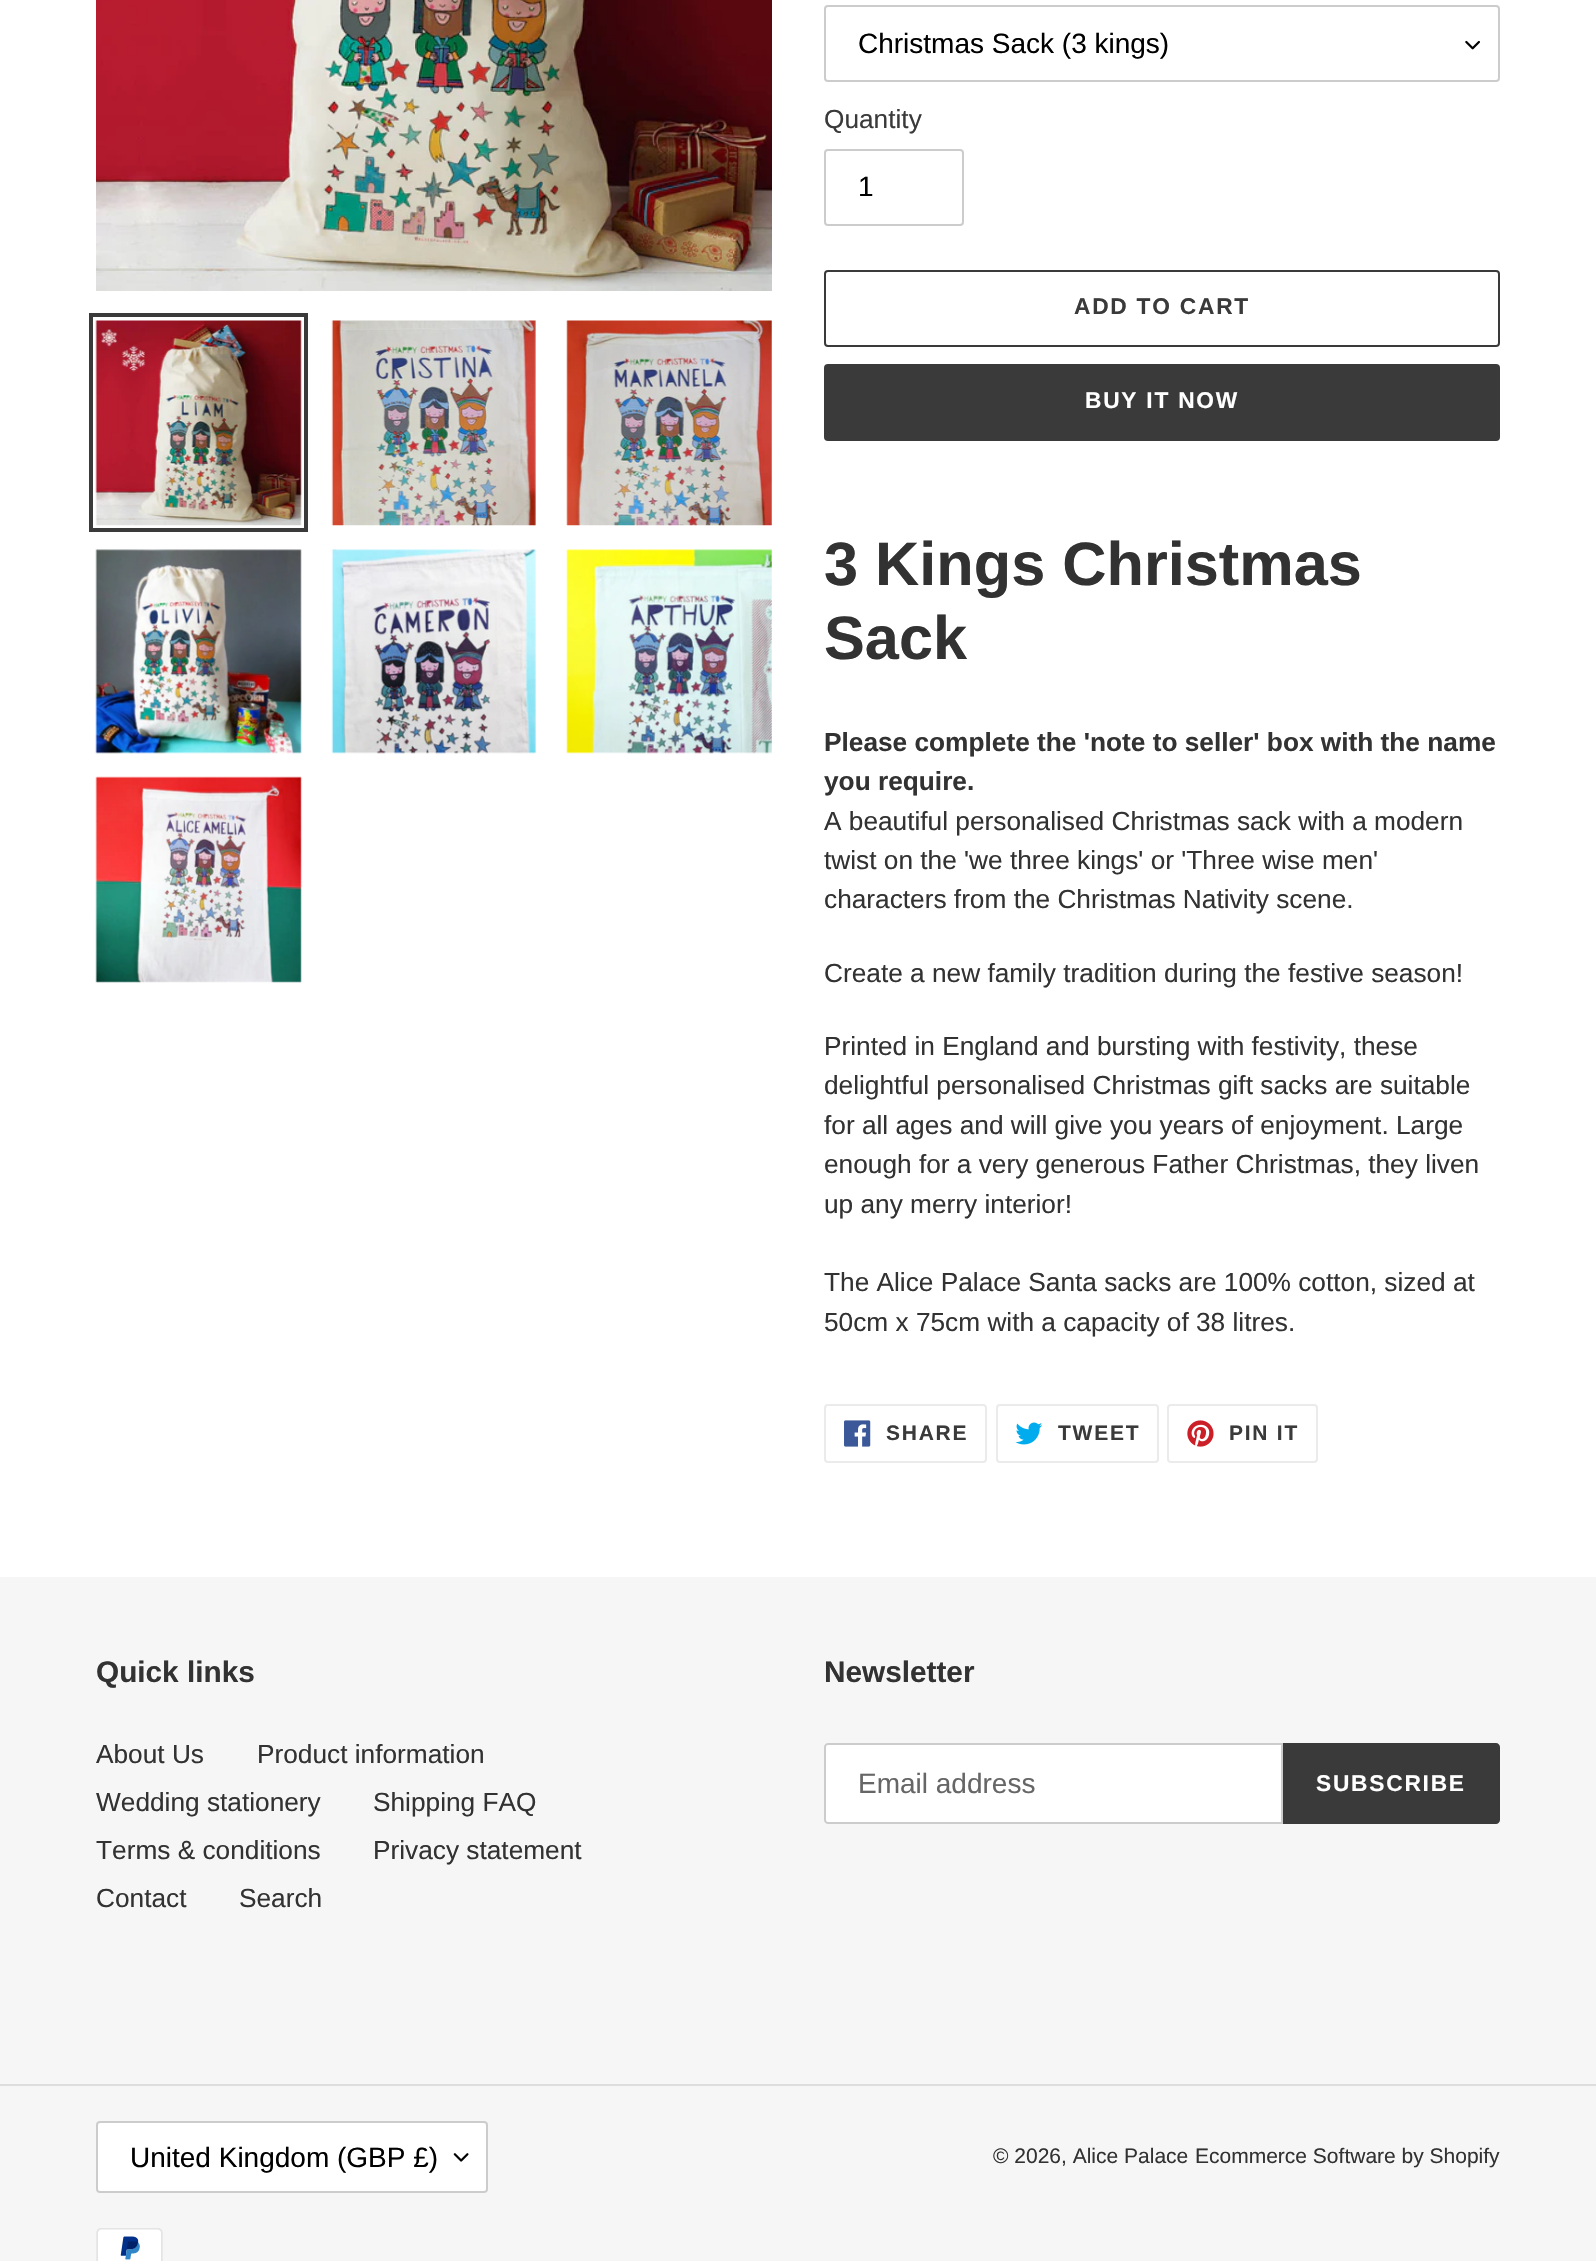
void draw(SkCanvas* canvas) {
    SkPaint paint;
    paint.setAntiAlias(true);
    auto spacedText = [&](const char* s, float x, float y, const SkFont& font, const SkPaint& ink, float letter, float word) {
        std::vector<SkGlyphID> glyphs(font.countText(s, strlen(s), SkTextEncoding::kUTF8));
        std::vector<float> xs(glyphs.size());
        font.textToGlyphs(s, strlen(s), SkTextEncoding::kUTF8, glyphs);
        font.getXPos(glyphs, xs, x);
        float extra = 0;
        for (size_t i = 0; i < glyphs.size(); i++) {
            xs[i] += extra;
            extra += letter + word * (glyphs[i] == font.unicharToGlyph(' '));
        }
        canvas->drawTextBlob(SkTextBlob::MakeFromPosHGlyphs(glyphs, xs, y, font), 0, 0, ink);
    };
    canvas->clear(0xFFFFFFFF);
    canvas->drawImageRect(SkImages::DeferredFromEncodedData(SkData::MakeFromFileName("img1.png")), SkRect::MakeXYWH(96, 0, 676, 291), SkSamplingOptions());
    paint.setStyle(SkPaint::kStroke_Style);
    paint.setStrokeWidth(4);
    paint.setColor(0xFF3A3A3A);
    canvas->drawRect(SkRect::MakeXYWH(91, 315, 215, 215), paint);
    canvas->drawImageRect(SkImages::DeferredFromEncodedData(SkData::MakeFromFileName("img2.png")), SkRect::MakeXYWH(95, 320, 207, 206), SkSamplingOptions());
    canvas->drawImageRect(SkImages::DeferredFromEncodedData(SkData::MakeFromFileName("img3.png")), SkRect::MakeXYWH(331, 320, 205, 206), SkSamplingOptions());
    canvas->drawImageRect(SkImages::DeferredFromEncodedData(SkData::MakeFromFileName("img4.png")), SkRect::MakeXYWH(566, 320, 206, 206), SkSamplingOptions());
    canvas->drawImageRect(SkImages::DeferredFromEncodedData(SkData::MakeFromFileName("img5.png")), SkRect::MakeXYWH(95, 549, 207, 205), SkSamplingOptions());
    canvas->drawImageRect(SkImages::DeferredFromEncodedData(SkData::MakeFromFileName("img6.png")), SkRect::MakeXYWH(331, 549, 205, 205), SkSamplingOptions());
    canvas->drawImageRect(SkImages::DeferredFromEncodedData(SkData::MakeFromFileName("img7.png")), SkRect::MakeXYWH(566, 549, 206, 205), SkSamplingOptions());
    canvas->drawImageRect(SkImages::DeferredFromEncodedData(SkData::MakeFromFileName("img8.png")), SkRect::MakeXYWH(95, 776, 207, 207), SkSamplingOptions());
    canvas->drawImageRect(SkImages::DeferredFromEncodedData(SkData::MakeFromFileName("img9.png")), SkRect::MakeXYWH(1465, 40, 15, 10), SkSamplingOptions());
    paint.setStrokeWidth(2);
    paint.setColor(0xFFCCCCCC);
    canvas->drawRoundRect(SkRect::MakeXYWH(825, 6, 674, 75), 3, 3, paint);
    SkFont font1(fontMgr->matchFamilyStyle("Liberation Sans", SkFontStyle::Normal()), 28);
    font1.setSubpixel(true);
    paint.setStyle(SkPaint::kFill_Style);
    paint.setColor(0xFF000000);
    canvas->drawString("Christmas Sack (3 kings)", 858, 53, font1, paint);
    SkFont font2(fontMgr->matchFamilyStyle("Liberation Sans", SkFontStyle::Normal()), 26.25f);
    font2.setSubpixel(true);
    paint.setColor(0xFF3A3A3A);
    canvas->drawString("Quantity", 824, 128, font2, paint);
    paint.setStyle(SkPaint::kStroke_Style);
    paint.setColor(0xFFCCCCCC);
    canvas->drawRoundRect(SkRect::MakeXYWH(825, 150, 138, 75), 3, 3, paint);
    paint.setStyle(SkPaint::kFill_Style);
    paint.setColor(0xFF000000);
    canvas->drawString("1", 858, 196, font1, paint);
    paint.setStyle(SkPaint::kStroke_Style);
    paint.setColor(0xFF3A3A3A);
    canvas->drawRoundRect(SkRect::MakeXYWH(825, 271, 674, 75), 3, 3, paint);
    SkFont font3(fontMgr->matchFamilyStyle("Liberation Sans", SkFontStyle::Bold()), 22.75f);
    font3.setSubpixel(true);
    paint.setStyle(SkPaint::kFill_Style);
    spacedText("ADD TO CART", 1074, 314, font3, paint, 1.75f, 0);
    canvas->drawRoundRect(SkRect::MakeXYWH(824, 364, 676, 77), 4, 4, paint);
    paint.setColor(0xFFFFFFFF);
    spacedText("BUY IT NOW", 1085, 408, font3, paint, 1.75f, 0);
    SkFont font4(fontMgr->matchFamilyStyle("Liberation Sans", SkFontStyle::Bold()), 61.25f);
    font4.setSubpixel(true);
    paint.setColor(0xFF333232);
    canvas->drawString("3 Kings Christmas", 824, 585, font4, paint);
    canvas->drawString("Sack", 824, 659, font4, paint);
    SkFont font5(fontMgr->matchFamilyStyle("Liberation Sans", SkFontStyle::Bold()), 26.25f);
    font5.setSubpixel(true);
    canvas->drawString("Please complete the 'note to seller' box with the name", 824, 751, font5, paint);
    canvas->drawString("you require.", 824, 790, font5, paint);
    canvas->drawString("A beautiful personalised Christmas sack with a modern", 824, 830, font2, paint);
    canvas->drawString("twist on the 'we three kings' or 'Three wise men'", 824, 869, font2, paint);
    canvas->drawString("characters from the Christmas Nativity scene.", 824, 908, font2, paint);
    canvas->drawString("Create a new family tradition during the festive season!", 824, 982, font2, paint);
    canvas->drawString("Printed in England and bursting with festivity, these", 824, 1055, font2, paint);
    canvas->drawString("delightful personalised Christmas gift sacks are suitable", 824, 1094, font2, paint);
    canvas->drawString("for all ages and will give you years of enjoyment. Large", 824, 1134, font2, paint);
    canvas->drawString("enough for a very generous Father Christmas, they liven", 824, 1173, font2, paint);
    canvas->drawString("up any merry interior!", 824, 1213, font2, paint);
    canvas->drawString("The Alice Palace Santa sacks are 100% cotton, sized at", 824, 1291, font2, paint);
    canvas->drawString("50cm x 75cm with a capacity of 38 litres.", 824, 1331, font2, paint);
    paint.setStyle(SkPaint::kStroke_Style);
    paint.setColor(0xFFEBEBEB);
    canvas->drawRoundRect(SkRect::MakeXYWH(825, 1405, 161, 57), 3, 3, paint);
    canvas->drawImageRect(SkImages::DeferredFromEncodedData(SkData::MakeFromFileName("img10.png")), SkRect::MakeXYWH(844, 1420, 27, 27), SkSamplingOptions());
    SkFont font6(fontMgr->matchFamilyStyle("Liberation Sans", SkFontStyle::Bold()), 21);
    font6.setSubpixel(true);
    paint.setStyle(SkPaint::kFill_Style);
    paint.setColor(0xFF3A3A3A);
    spacedText("SHARE", 886, 1440, font6, paint, 1.75f, 0);
    paint.setStyle(SkPaint::kStroke_Style);
    paint.setColor(0xFFEBEBEB);
    canvas->drawRoundRect(SkRect::MakeXYWH(997, 1405, 161, 57), 3, 3, paint);
    canvas->drawImageRect(SkImages::DeferredFromEncodedData(SkData::MakeFromFileName("img11.png")), SkRect::MakeXYWH(1015, 1422, 28, 23), SkSamplingOptions());
    paint.setStyle(SkPaint::kFill_Style);
    paint.setColor(0xFF3A3A3A);
    spacedText("TWEET", 1058, 1440, font6, paint, 1.75f, 0);
    paint.setStyle(SkPaint::kStroke_Style);
    paint.setColor(0xFFEBEBEB);
    canvas->drawRoundRect(SkRect::MakeXYWH(1168, 1405, 149, 57), 3, 3, paint);
    canvas->drawImageRect(SkImages::DeferredFromEncodedData(SkData::MakeFromFileName("img12.png")), SkRect::MakeXYWH(1187, 1420, 27, 27), SkSamplingOptions());
    paint.setStyle(SkPaint::kFill_Style);
    paint.setColor(0xFF3A3A3A);
    spacedText("PIN IT", 1229, 1440, font6, paint, 1.75f, 0);
    paint.setColor(0xFFF6F6F6);
    canvas->drawRect(SkRect::MakeXYWH(0, 1577, 1596, 684), paint);
    SkFont font7(fontMgr->matchFamilyStyle("Liberation Sans", SkFontStyle::Bold()), 29.75f);
    font7.setSubpixel(true);
    paint.setColor(0xFF333232);
    canvas->drawString("Quick links", 96, 1682, font7, paint);
    canvas->drawString("About Us", 96, 1763, font2, paint);
    canvas->drawString("Product information", 257, 1763, font2, paint);
    canvas->drawString("Wedding stationery", 96, 1811, font2, paint);
    canvas->drawString("Shipping FAQ", 373, 1811, font2, paint);
    canvas->drawString("Terms & conditions", 96, 1859, font2, paint);
    canvas->drawString("Privacy statement", 373, 1859, font2, paint);
    canvas->drawString("Contact", 96, 1907, font2, paint);
    canvas->drawString("Search", 239, 1907, font2, paint);
    canvas->drawString("Newsletter", 824, 1682, font7, paint);
    paint.setColor(0xFFFFFFFF);
    canvas->drawPath(SkPathBuilder().moveTo(828, 1744).lineTo(1282, 1744).lineTo(1282, 1823).lineTo(828, 1823).cubicTo(826.5f, 1823, 825, 1821.5f, 825, 1820).lineTo(825, 1747).cubicTo(825, 1745.5f, 826.5f, 1744, 828, 1744).close().detach(), paint);
    paint.setStyle(SkPaint::kStroke_Style);
    paint.setColor(0xFFCCCCCC);
    canvas->drawPath(SkPathBuilder().moveTo(828, 1744).lineTo(1282, 1744).lineTo(1282, 1823).lineTo(828, 1823).cubicTo(826.5f, 1823, 825, 1821.5f, 825, 1820).lineTo(825, 1747).cubicTo(825, 1745.5f, 826.5f, 1744, 828, 1744).close().detach(), paint);
    paint.setStyle(SkPaint::kFill_Style);
    paint.setColor(0xFF666666);
    canvas->drawString("Email address", 858, 1793, font1, paint);
    paint.setColor(0xFF3A3A3A);
    canvas->drawPath(SkPathBuilder().moveTo(1283, 1743).lineTo(1496, 1743).cubicTo(1498, 1743, 1500, 1745, 1500, 1747).lineTo(1500, 1820).cubicTo(1500, 1822, 1498, 1824, 1496, 1824).lineTo(1283, 1824).close().detach(), paint);
    paint.setColor(0xFFFFFFFF);
    spacedText("SUBSCRIBE", 1316, 1791, font3, paint, 1.75f, 0);
    paint.setColor(0xFFDDDDDD);
    canvas->drawRect(SkRect::MakeXYWH(0, 2084, 1596, 2), paint);
    paint.setColor(0xFFFFFFFF);
    canvas->drawRoundRect(SkRect::MakeXYWH(96, 2121, 392, 72), 4, 4, paint);
    canvas->drawImageRect(SkImages::DeferredFromEncodedData(SkData::MakeFromFileName("img13.png")), SkRect::MakeXYWH(453, 2153, 16, 9), SkSamplingOptions());
    paint.setStyle(SkPaint::kStroke_Style);
    paint.setColor(0xFFCCCCCC);
    canvas->drawRoundRect(SkRect::MakeXYWH(97, 2122, 390, 70), 3, 3, paint);
    paint.setStyle(SkPaint::kFill_Style);
    paint.setColor(0xFF000000);
    canvas->drawString("United Kingdom (GBP £)", 130, 2167, font1, paint);
    SkFont font8(fontMgr->matchFamilyStyle("Liberation Sans", SkFontStyle::Normal()), 21);
    font8.setSubpixel(true);
    paint.setColor(0xFF333232);
    canvas->drawString("© 2026, Alice Palace", 993, 2163, font8, paint);
    canvas->drawString("Ecommerce Software by Shopify", 1195, 2163, font8, paint);
    canvas->drawImageRect(SkImages::DeferredFromEncodedData(SkData::MakeFromFileName("img14.png")), SkRect::MakeXYWH(96, 2228, 67, 33), SkSamplingOptions());
}
